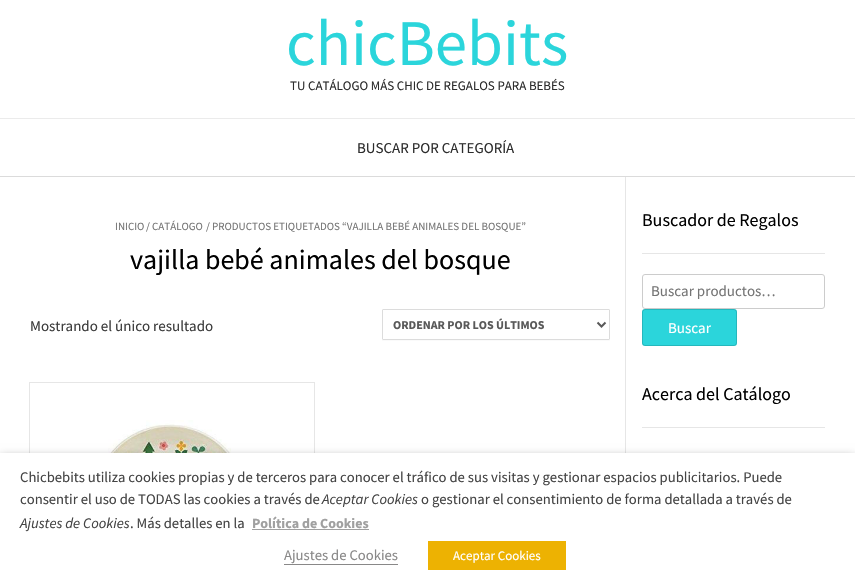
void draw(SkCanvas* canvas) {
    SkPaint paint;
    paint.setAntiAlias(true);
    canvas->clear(0xFFFFFFFF);
    paint.setColor(0xFFDBDBDB);
    canvas->drawRect(SkRect::MakeXYWH(0, 176, 855, 1), paint);
    SkFont font1(fontMgr->matchFamilyStyle("Source Sans Pro", SkFontStyle::Normal()), 65);
    font1.setSubpixel(true);
    paint.setColor(0xFF2BD5DB);
    canvas->drawString("chicBebits", 286, 65, font1, paint);
    SkFont font2(fontMgr->matchFamilyStyle("Source Sans Pro", SkFontStyle::Normal()), 13);
    font2.setSubpixel(true);
    paint.setColor(0xFF2D2D2D);
    canvas->drawString("TU CATÁLOGO MÁS CHIC DE REGALOS PARA BEBÉS", 290, 90, font2, paint);
    paint.setColor(0xFFEBEBEB);
    canvas->drawRect(SkRect::MakeXYWH(0, 118, 855, 1), paint);
    SkFont font3(fontMgr->matchFamilyStyle("Source Sans Pro", SkFontStyle::Normal()), 15);
    font3.setSubpixel(true);
    paint.setColor(0xFF2D2D2D);
    canvas->drawString("BUSCAR POR CATEGORÍA", 357, 153, font3, paint);
    paint.setColor(0xFFE6E6E6);
    canvas->drawRect(SkRect::MakeXYWH(625, 177, 1, 276), paint);
    SkFont font4(fontMgr->matchFamilyStyle("Source Sans Pro", SkFontStyle::Normal()), 11);
    font4.setSubpixel(true);
    paint.setColor(0xFF757575);
    canvas->drawString("INICIO", 115, 230, font4, paint);
    canvas->drawString("/", 146, 230, font4, paint);
    canvas->drawString("CATÁLOGO", 152, 230, font4, paint);
    canvas->drawString("/ PRODUCTOS ETIQUETADOS “VAJILLA BEBÉ ANIMALES DEL BOSQUE”", 206, 230, font4, paint);
    SkFont font5(fontMgr->matchFamilyStyle("Source Sans Pro", SkFontStyle::Normal()), 28);
    font5.setSubpixel(true);
    paint.setColor(0xFF000000);
    canvas->drawString("vajilla bebé animales del bosque", 130, 269, font5, paint);
    paint.setColor(0xFF3C3C3C);
    canvas->drawString("Mostrando el único resultado", 30, 331, font3, paint);
    paint.setColor(0xFFFAFAFA);
    canvas->drawPath(SkPathBuilder().moveTo(382, 339).lineTo(382, 341).lineTo(609, 341).cubicTo(610, 341, 610, 340, 610, 339).cubicTo(610, 340, 610, 340, 609, 340).lineTo(383, 340).cubicTo(382, 340, 382, 340, 382, 339).close().detach(), paint);
    paint.setStyle(SkPaint::kStroke_Style);
    paint.setStrokeWidth(1);
    paint.setColor(0xFFDCDCDC);
    canvas->drawRoundRect(SkRect::MakeXYWH(382.5f, 309.5f, 227, 30), 0.5f, 0.5f, paint);
    paint.setStrokeWidth(2);
    paint.setColor(0xFF595959);
    canvas->drawPath(SkPathBuilder().moveTo(597.5f, 322.5f).lineTo(601.5f, 326.5f).lineTo(605.5f, 322.5f).detach(), paint);
    SkFont font6(fontMgr->matchFamilyStyle("Source Sans Pro", SkFontStyle::Bold()), 12);
    font6.setSubpixel(true);
    paint.setStyle(SkPaint::kFill_Style);
    canvas->drawString("ORDENAR POR LOS ÚLTIMOS", 393, 329, font6, paint);
    paint.setStyle(SkPaint::kStroke_Style);
    paint.setStrokeWidth(1);
    paint.setColor(0xFFE6E6E6);
    canvas->drawRect(SkRect::MakeXYWH(29.5f, 382.5f, 285, 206), paint);
    canvas->drawImageRect(SkImages::DeferredFromEncodedData(SkData::MakeFromFileName("img1.png")), SkRect::MakeXYWH(52, 420, 236, 33), SkSamplingOptions());
    paint.setStyle(SkPaint::kFill_Style);
    canvas->drawRect(SkRect::MakeXYWH(642, 253, 183, 1), paint);
    SkFont font7(fontMgr->matchFamilyStyle("Source Sans Pro", SkFontStyle::Normal()), 18);
    font7.setSubpixel(true);
    paint.setColor(0xFF000000);
    canvas->drawString("Buscador de Regalos", 642, 226, font7, paint);
    paint.setStyle(SkPaint::kStroke_Style);
    paint.setColor(0xFFCCCCCC);
    canvas->drawRoundRect(SkRect::MakeXYWH(642.5f, 274.5f, 182, 34), 2.5f, 2.5f, paint);
    paint.setStyle(SkPaint::kFill_Style);
    paint.setColor(0xFF757575);
    canvas->drawString("Buscar productos…", 651, 296, font3, paint);
    paint.setColor(0xFF2BD5DB);
    canvas->drawRoundRect(SkRect::MakeXYWH(642, 309, 95, 37), 3, 3, paint);
    paint.setStyle(SkPaint::kStroke_Style);
    paint.setColor(0x24000000);
    canvas->drawRoundRect(SkRect::MakeXYWH(642.5f, 309.5f, 94, 36), 2.5f, 2.5f, paint);
    paint.setStyle(SkPaint::kFill_Style);
    paint.setColor(0xFFFFFFFF);
    canvas->drawString("Buscar", 668, 333, font3, paint);
    paint.setColor(0xFFE6E6E6);
    canvas->drawRect(SkRect::MakeXYWH(642, 427, 183, 1), paint);
    paint.setColor(0xFF000000);
    canvas->drawString("Acerca del Catálogo", 642, 400, font7, paint);
    paint.setColor(0x80000000);
    paint.setMaskFilter(SkMaskFilter::MakeBlur(kNormal_SkBlurStyle, 5));
    canvas->drawRect(SkRect::MakeXYWH(0, 458, 855, 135), paint);
    paint.setMaskFilter(nullptr);
    paint.setColor(0xFFFFFFFF);
    canvas->drawRect(SkRect::MakeXYWH(0, 453, 855, 135), paint);
    SkFont font8(fontMgr->matchFamilyStyle("Source Sans Pro", SkFontStyle::Normal()), 14.67f);
    font8.setSubpixel(true);
    paint.setColor(0xFF444444);
    canvas->drawString("Chicbebits utiliza cookies propias y de terceros para conocer el tráfico de sus visitas y gestionar espacios publicitarios. Puede", 20, 482, font8, paint);
    canvas->drawString("consentir el uso de TODAS las cookies a través de", 20, 504, font8, paint);
    SkFont font9(fontMgr->matchFamilyStyle("Source Sans Pro", SkFontStyle::Italic()), 14.67f);
    font9.setSubpixel(true);
    canvas->drawString("Aceptar Cookies", 322, 504, font9, paint);
    canvas->drawString("o gestionar el consentimiento de forma detallada a través de", 421, 504, font8, paint);
    canvas->drawString("Ajustes de Cookies", 20, 528, font9, paint);
    canvas->drawString(". Más detalles en la", 130, 528, font8, paint);
    SkFont font10(fontMgr->matchFamilyStyle("Source Sans Pro", SkFontStyle::Bold()), 14);
    font10.setSubpixel(true);
    paint.setColor(0xFFA0A0A0);
    canvas->drawString("Política de Cookies", 252, 528, font10, paint);
    canvas->drawRect(SkRect::MakeXYWH(252, 529, 117, 1), paint);
    paint.setColor(0xFF898888);
    canvas->drawString("Ajustes de Cookies", 284, 560, font8, paint);
    canvas->drawRect(SkRect::MakeXYWH(284, 564, 114, 1), paint);
    paint.setColor(0xFFEDB202);
    canvas->drawRect(SkRect::MakeXYWH(428, 541, 138, 29), paint);
    paint.setColor(0xFFFFFFFF);
    canvas->drawString("Aceptar Cookies", 453, 560, font2, paint);
}
